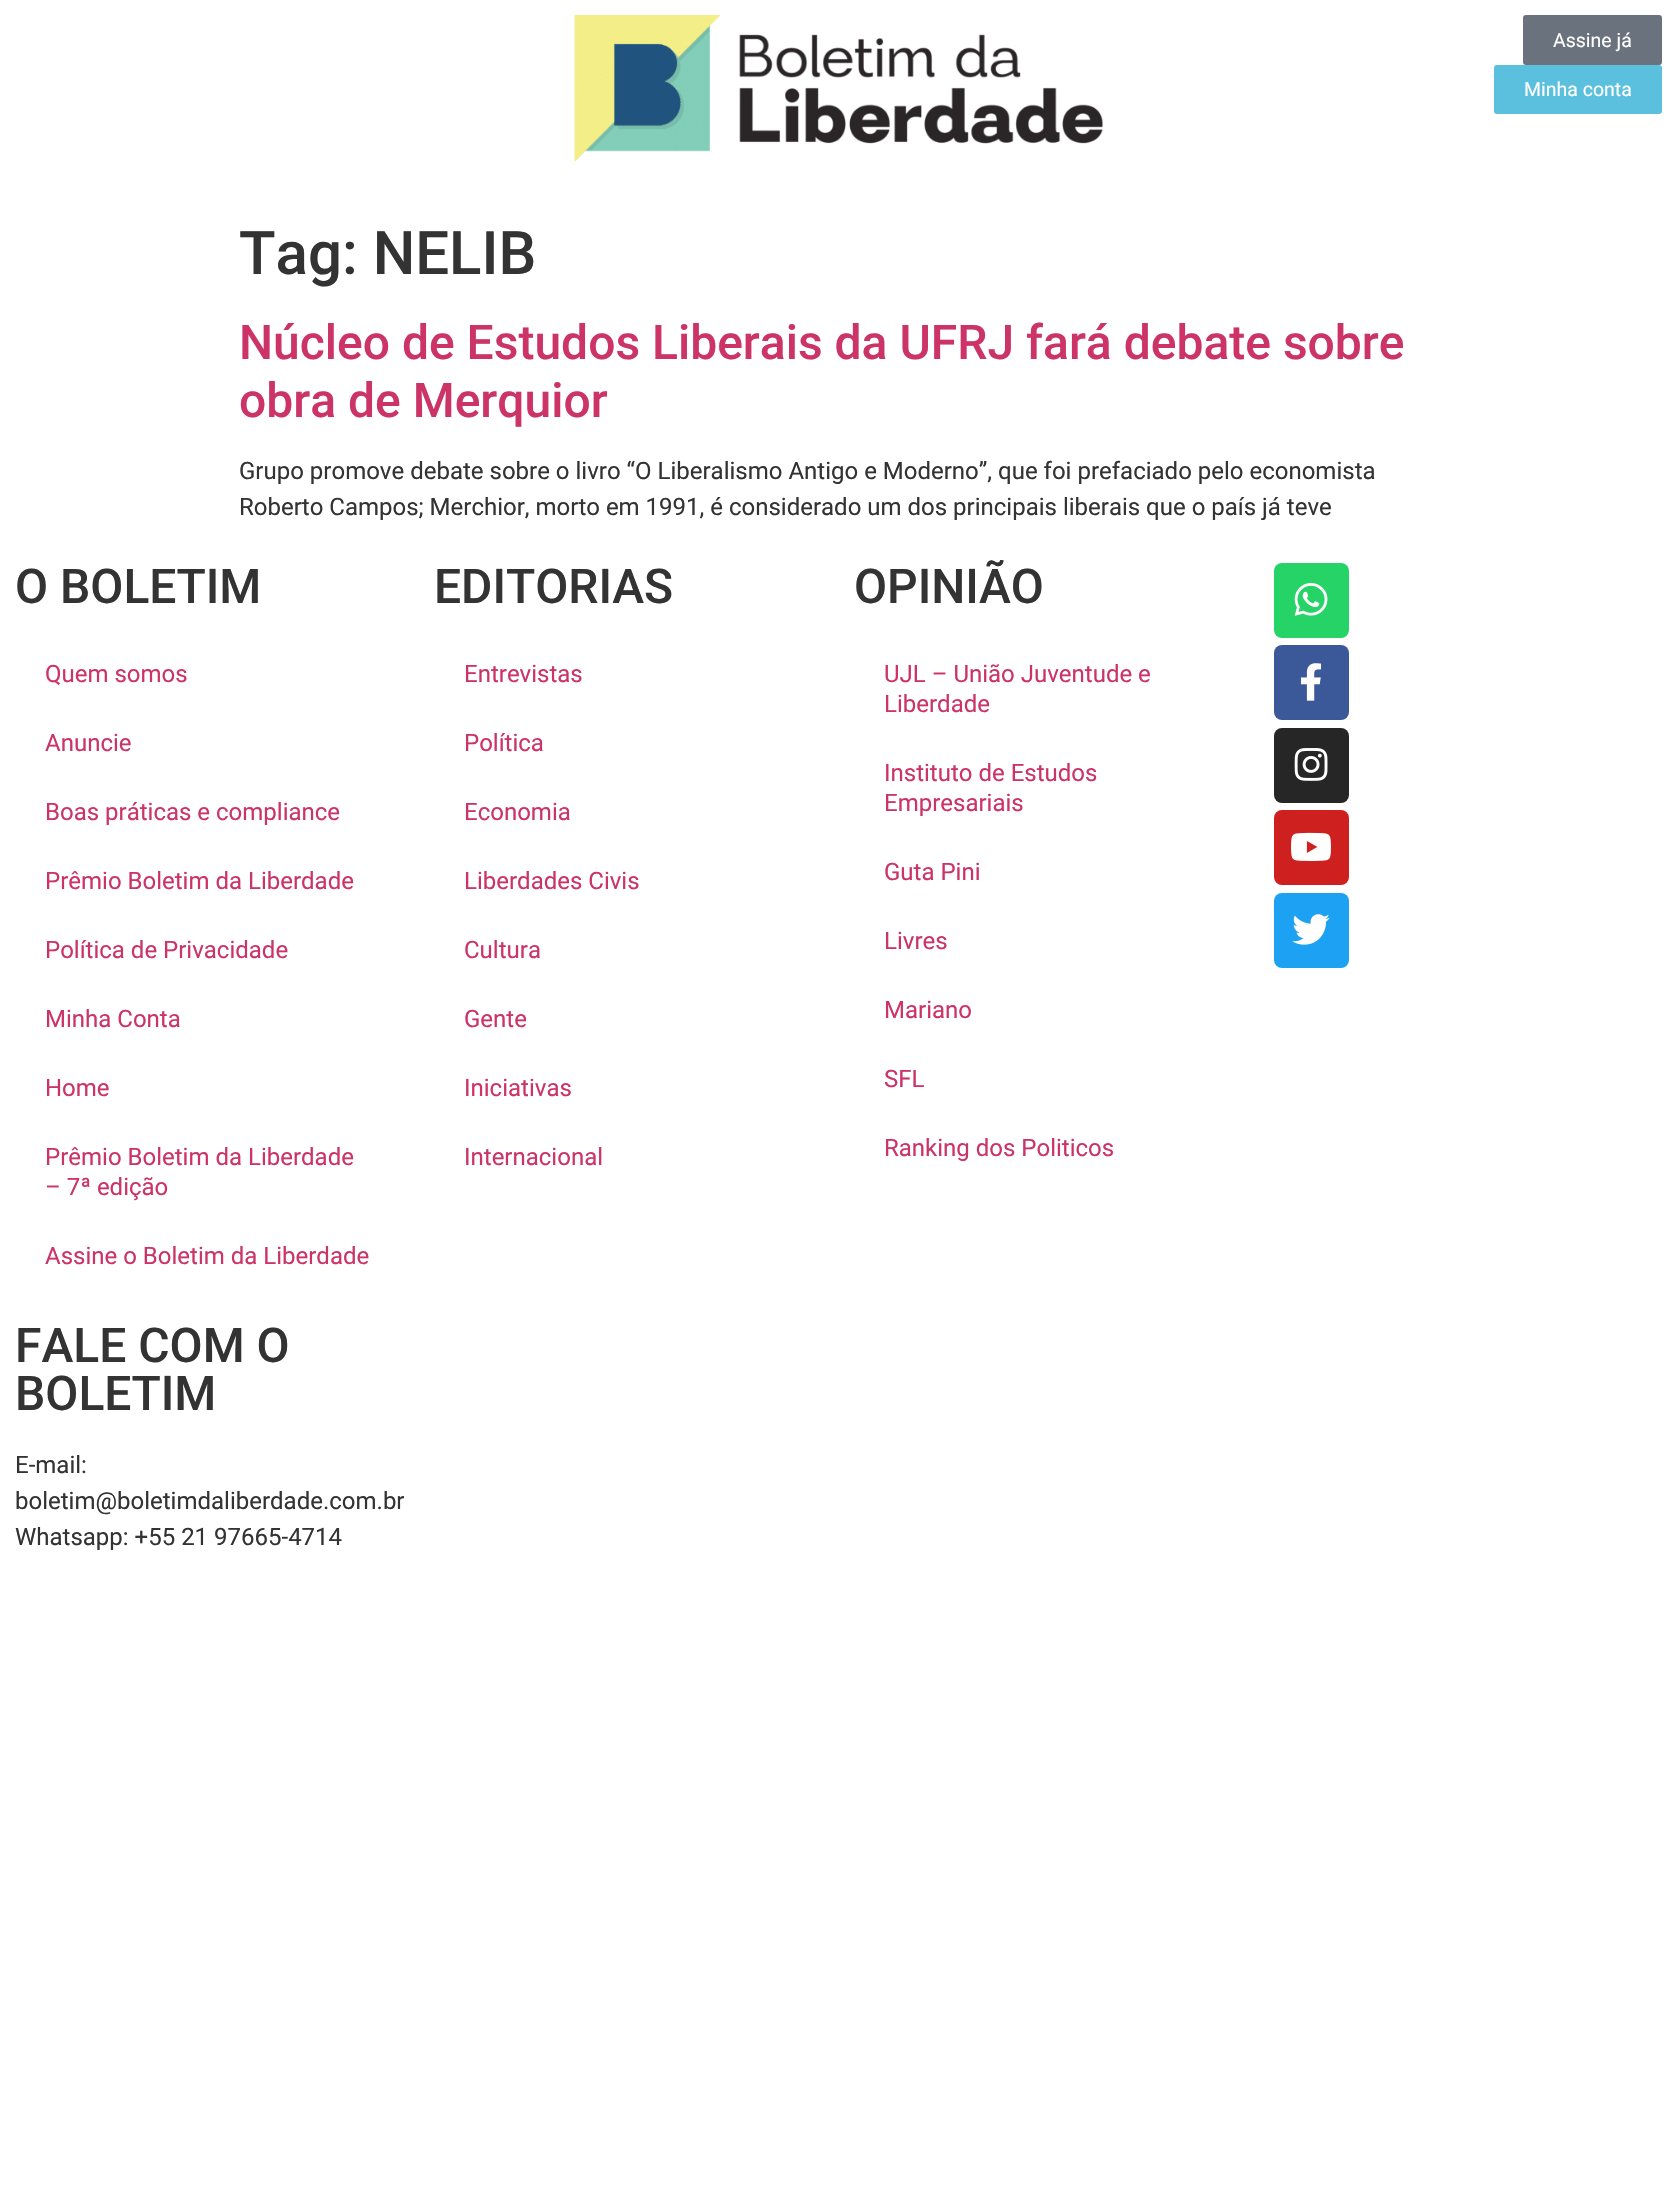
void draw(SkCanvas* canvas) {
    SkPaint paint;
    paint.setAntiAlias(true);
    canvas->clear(0xFFFFFFFF);
    canvas->drawImageRect(SkImages::DeferredFromEncodedData(SkData::MakeFromFileName("img1.png")), SkRect::MakeXYWH(574, 15, 529, 147), SkSamplingOptions());
    paint.setColor(0xFF69727D);
    canvas->drawRoundRect(SkRect::MakeXYWH(1523, 15, 139, 50), 3, 3, paint);
    SkFont font1(fontMgr->matchFamilyStyle("Roboto", SkFontStyle::Normal()), 19.5f);
    font1.setSubpixel(true);
    paint.setColor(0xFFFFFFFF);
    canvas->drawString("Assine já", 1553, 47, font1, paint);
    paint.setColor(0xFF5BC0DE);
    canvas->drawRoundRect(SkRect::MakeXYWH(1494, 65, 168, 49), 3, 3, paint);
    paint.setColor(0xFFFFFFFF);
    canvas->drawString("Minha conta", 1524, 96, font1, paint);
    SkFont font2(fontMgr->matchFamilyStyle("Roboto", SkFontStyle(500, SkFontStyle::kNormal_Width, SkFontStyle::kUpright_Slant)), 60);
    font2.setSubpixel(true);
    paint.setColor(0xFF333333);
    canvas->drawString("Tag: NELIB", 239, 274, font2, paint);
    SkFont font3(fontMgr->matchFamilyStyle("Roboto", SkFontStyle(500, SkFontStyle::kNormal_Width, SkFontStyle::kUpright_Slant)), 48);
    font3.setSubpixel(true);
    paint.setColor(0xFFCC3366);
    canvas->drawString("Núcleo de Estudos Liberais da UFRJ fará debate sobre", 239, 359, font3, paint);
    canvas->drawString("obra de Merquior", 239, 417, font3, paint);
    SkFont font4(fontMgr->matchFamilyStyle("Roboto", SkFontStyle::Normal()), 24);
    font4.setSubpixel(true);
    paint.setColor(0xFF333333);
    canvas->drawString("Grupo promove debate sobre o livro “O Liberalismo Antigo e Moderno”, que foi prefaciado pelo economista", 239, 479, font4, paint);
    canvas->drawString("Roberto Campos; Merchior, morto em 1991, é considerado um dos principais liberais que o país já teve", 239, 515, font4, paint);
    canvas->drawString("O BOLETIM", 15, 603, font3, paint);
    paint.setColor(0xFFCC3366);
    canvas->drawString("Quem somos", 45, 682, font4, paint);
    canvas->drawString("Anuncie", 45, 751, font4, paint);
    canvas->drawString("Boas práticas e compliance", 45, 820, font4, paint);
    canvas->drawString("Prêmio Boletim da Liberdade", 45, 889, font4, paint);
    canvas->drawString("Política de Privacidade", 45, 958, font4, paint);
    canvas->drawString("Minha Conta", 45, 1027, font4, paint);
    canvas->drawString("Home", 45, 1096, font4, paint);
    canvas->drawString("Prêmio Boletim da Liberdade", 45, 1165, font4, paint);
    canvas->drawString("– 7ª edição", 45, 1195, font4, paint);
    canvas->drawString("Assine o Boletim da Liberdade", 45, 1264, font4, paint);
    paint.setColor(0xFF333333);
    canvas->drawString("FALE COM O", 15, 1362, font3, paint);
    canvas->drawString("BOLETIM", 15, 1410, font3, paint);
    canvas->drawString("E-mail:", 15, 1473, font4, paint);
    canvas->drawString("boletim@boletimdaliberdade.com.br", 15, 1509, font4, paint);
    canvas->drawString("Whatsapp: +55 21 97665-4714", 15, 1545, font4, paint);
    canvas->drawString("EDITORIAS", 434, 603, font3, paint);
    paint.setColor(0xFFCC3366);
    canvas->drawString("Entrevistas", 464, 682, font4, paint);
    canvas->drawString("Política", 464, 751, font4, paint);
    canvas->drawString("Economia", 464, 820, font4, paint);
    canvas->drawString("Liberdades Civis", 464, 889, font4, paint);
    canvas->drawString("Cultura", 464, 958, font4, paint);
    canvas->drawString("Gente", 464, 1027, font4, paint);
    canvas->drawString("Iniciativas", 464, 1096, font4, paint);
    canvas->drawString("Internacional", 464, 1165, font4, paint);
    paint.setColor(0xFF333333);
    canvas->drawString("OPINIÃO", 854, 603, font3, paint);
    paint.setColor(0xFFCC3366);
    canvas->drawString("UJL – União Juventude e", 884, 682, font4, paint);
    canvas->drawString("Liberdade", 884, 712, font4, paint);
    canvas->drawString("Instituto de Estudos", 884, 781, font4, paint);
    canvas->drawString("Empresariais", 884, 811, font4, paint);
    canvas->drawString("Guta Pini", 884, 880, font4, paint);
    canvas->drawString("Livres", 884, 949, font4, paint);
    canvas->drawString("Mariano", 884, 1018, font4, paint);
    canvas->drawString("SFL", 884, 1087, font4, paint);
    canvas->drawString("Ranking dos Politicos", 884, 1156, font4, paint);
    paint.setColor(0xFF25D366);
    canvas->drawRoundRect(SkRect::MakeXYWH(1274, 563, 75, 75), 8, 8, paint);
    canvas->drawImageRect(SkImages::DeferredFromEncodedData(SkData::MakeFromFileName("img2.png")), SkRect::MakeXYWH(1294, 583, 34, 33), SkSamplingOptions());
    paint.setColor(0xFF3B5998);
    canvas->drawRoundRect(SkRect::MakeXYWH(1274, 645, 75, 75), 8, 8, paint);
    canvas->drawImageRect(SkImages::DeferredFromEncodedData(SkData::MakeFromFileName("img3.png")), SkRect::MakeXYWH(1300, 663, 22, 38), SkSamplingOptions());
    paint.setColor(0xFF262626);
    canvas->drawRoundRect(SkRect::MakeXYWH(1274, 728, 75, 75), 8, 8, paint);
    canvas->drawImageRect(SkImages::DeferredFromEncodedData(SkData::MakeFromFileName("img4.png")), SkRect::MakeXYWH(1294, 748, 34, 33), SkSamplingOptions());
    paint.setColor(0xFFCD201F);
    canvas->drawRoundRect(SkRect::MakeXYWH(1274, 810, 75, 75), 8, 8, paint);
    canvas->drawImageRect(SkImages::DeferredFromEncodedData(SkData::MakeFromFileName("img5.png")), SkRect::MakeXYWH(1291, 832, 40, 29), SkSamplingOptions());
    paint.setColor(0xFF1DA1F2);
    canvas->drawRoundRect(SkRect::MakeXYWH(1274, 893, 75, 75), 8, 8, paint);
    canvas->drawImageRect(SkImages::DeferredFromEncodedData(SkData::MakeFromFileName("img6.png")), SkRect::MakeXYWH(1292, 914, 38, 31), SkSamplingOptions());
}
